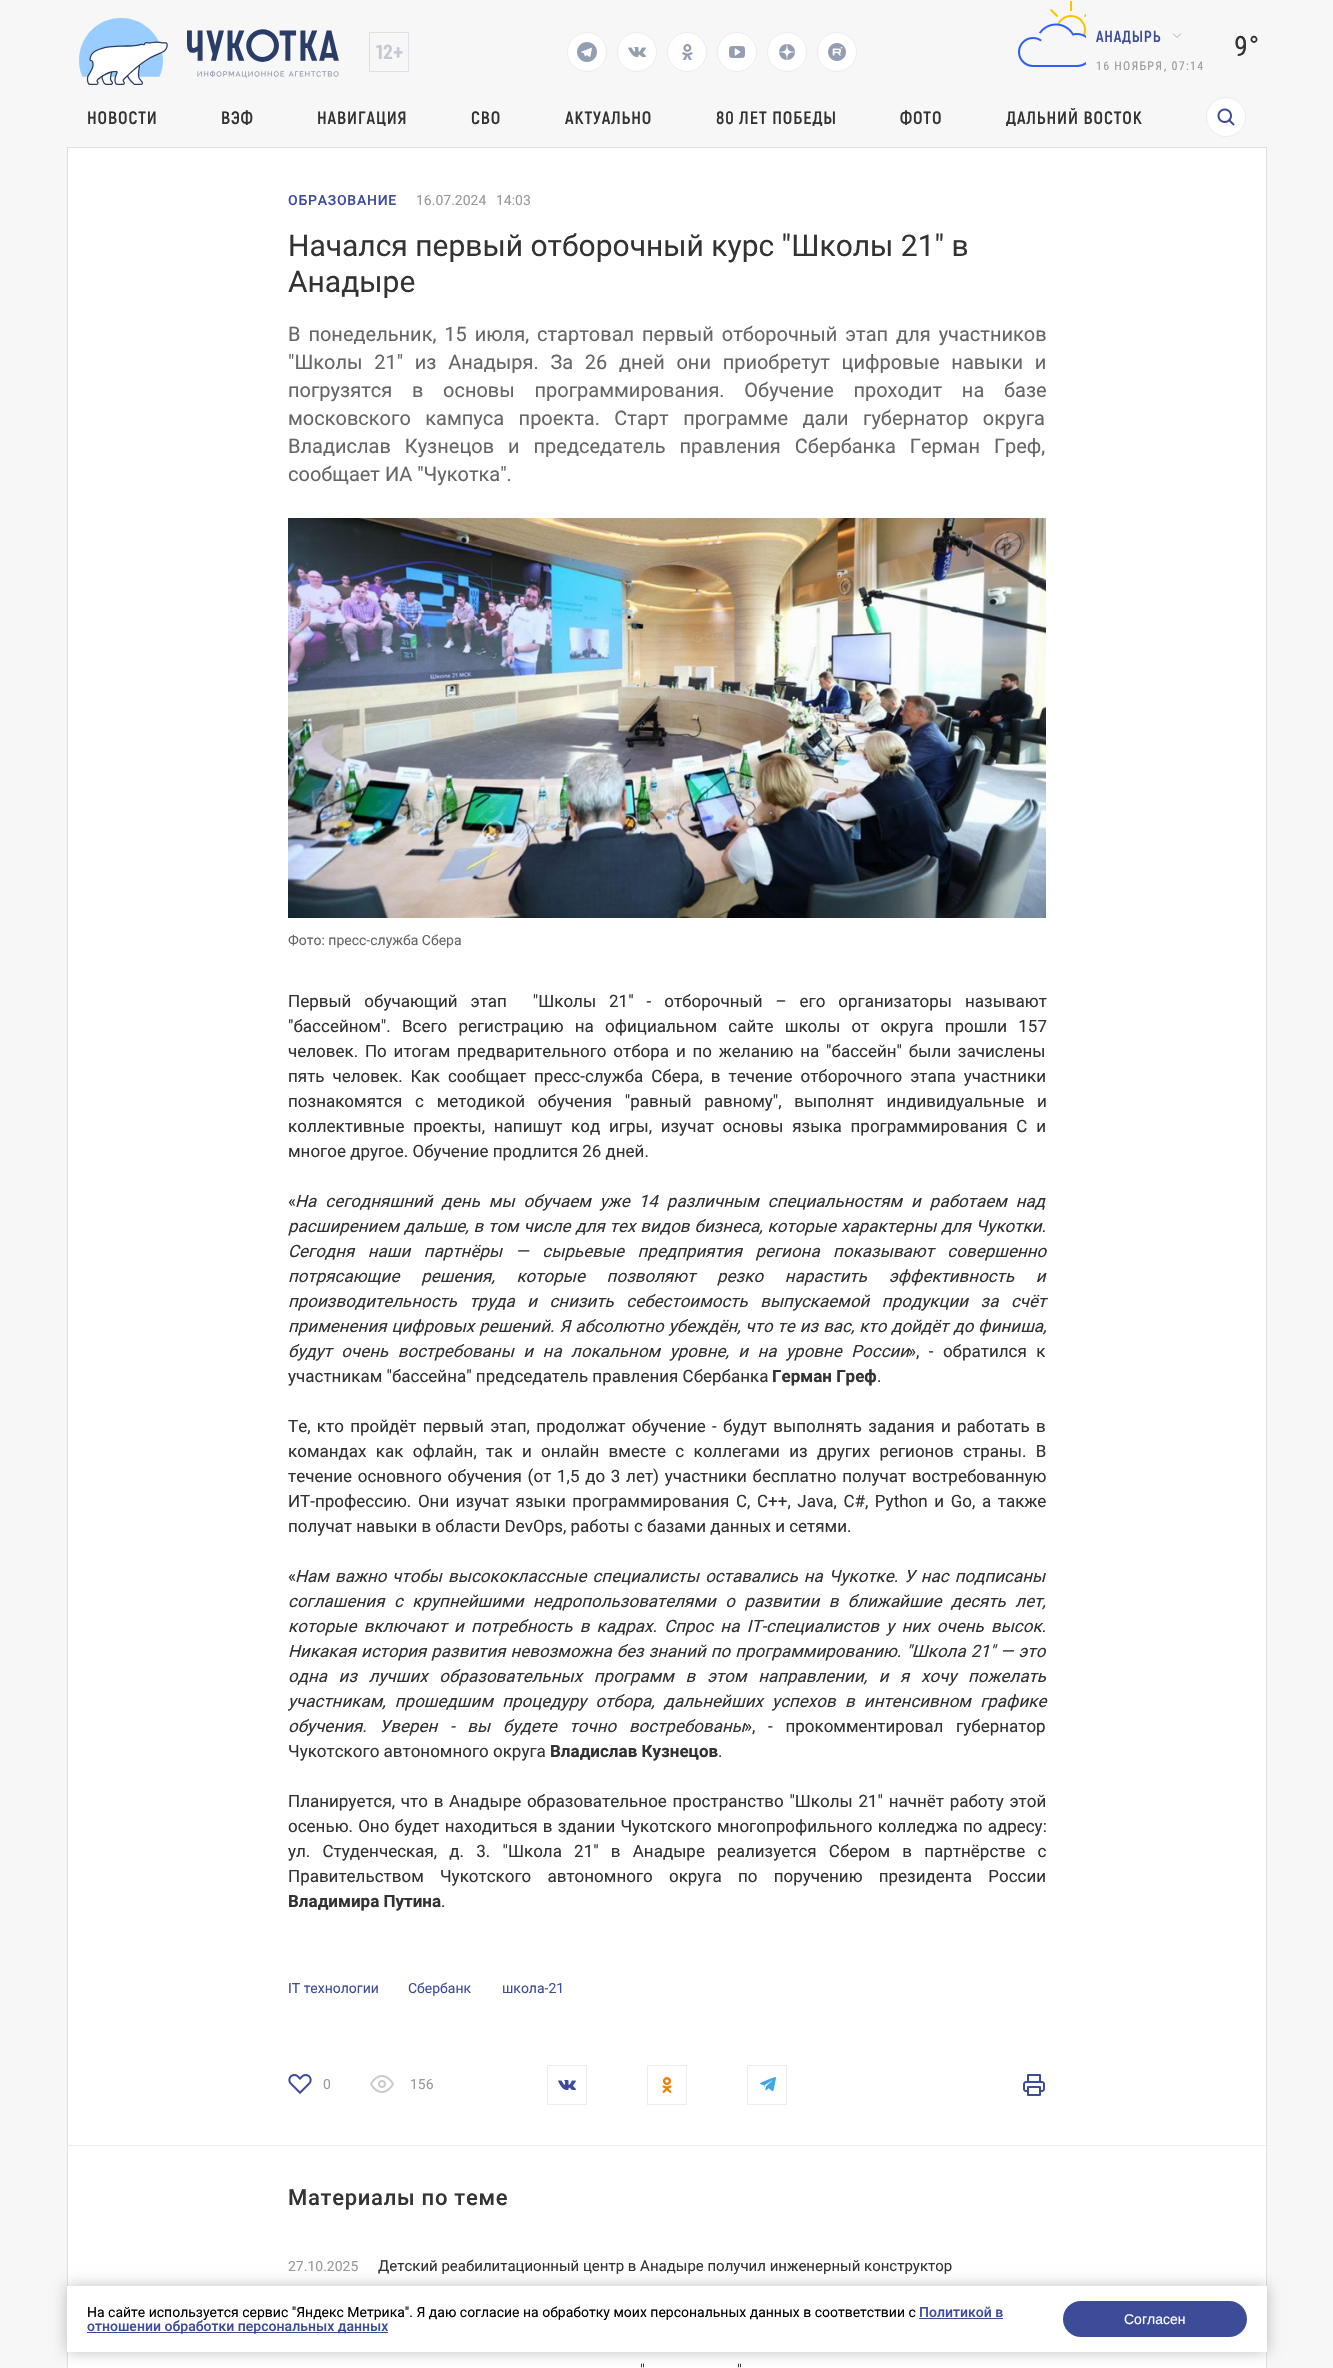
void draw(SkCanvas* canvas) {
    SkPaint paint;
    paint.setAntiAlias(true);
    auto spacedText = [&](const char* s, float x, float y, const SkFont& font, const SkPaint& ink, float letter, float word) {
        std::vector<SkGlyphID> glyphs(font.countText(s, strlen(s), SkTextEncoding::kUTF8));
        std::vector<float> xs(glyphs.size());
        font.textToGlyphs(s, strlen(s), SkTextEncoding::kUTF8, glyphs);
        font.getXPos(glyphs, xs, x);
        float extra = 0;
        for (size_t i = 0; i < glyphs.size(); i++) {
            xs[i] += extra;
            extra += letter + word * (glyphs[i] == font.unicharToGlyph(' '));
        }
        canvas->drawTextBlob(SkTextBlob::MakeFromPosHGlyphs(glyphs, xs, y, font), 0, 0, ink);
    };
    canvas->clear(0xFFF7F7F7);
    canvas->drawImageRect(SkImages::DeferredFromEncodedData(SkData::MakeFromFileName("img1.png")), SkRect::MakeXYWH(79, 18, 260, 67), SkSamplingOptions());
    canvas->drawImageRect(SkImages::DeferredFromEncodedData(SkData::MakeFromFileName("img2.png")), SkRect::MakeXYWH(369, 32, 40, 40), SkSamplingOptions());
    paint.setColor(0xFFFFFFFF);
    canvas->drawCircle(587, 52, 19.5f, paint);
    paint.setStyle(SkPaint::kStroke_Style);
    paint.setStrokeWidth(1);
    paint.setColor(0xFFECECEF);
    canvas->drawCircle(587, 52, 19.5f, paint);
    canvas->drawImageRect(SkImages::DeferredFromEncodedData(SkData::MakeFromFileName("img3.png")), SkRect::MakeXYWH(577, 42, 20, 20), SkSamplingOptions());
    paint.setStyle(SkPaint::kFill_Style);
    paint.setColor(0xFFFFFFFF);
    canvas->drawCircle(637, 52, 19.5f, paint);
    paint.setStyle(SkPaint::kStroke_Style);
    paint.setColor(0xFFECECEF);
    canvas->drawCircle(637, 52, 19.5f, paint);
    canvas->drawImageRect(SkImages::DeferredFromEncodedData(SkData::MakeFromFileName("img4.png")), SkRect::MakeXYWH(628, 47, 18, 10), SkSamplingOptions());
    paint.setStyle(SkPaint::kFill_Style);
    paint.setColor(0xFFFFFFFF);
    canvas->drawCircle(687, 52, 19.5f, paint);
    paint.setStyle(SkPaint::kStroke_Style);
    paint.setColor(0xFFECECEF);
    canvas->drawCircle(687, 52, 19.5f, paint);
    canvas->drawImageRect(SkImages::DeferredFromEncodedData(SkData::MakeFromFileName("img5.png")), SkRect::MakeXYWH(682, 44, 11, 16), SkSamplingOptions());
    paint.setStyle(SkPaint::kFill_Style);
    paint.setColor(0xFFFFFFFF);
    canvas->drawCircle(737, 52, 19.5f, paint);
    paint.setStyle(SkPaint::kStroke_Style);
    paint.setColor(0xFFECECEF);
    canvas->drawCircle(737, 52, 19.5f, paint);
    canvas->drawImageRect(SkImages::DeferredFromEncodedData(SkData::MakeFromFileName("img6.png")), SkRect::MakeXYWH(729, 46, 16, 12), SkSamplingOptions());
    paint.setStyle(SkPaint::kFill_Style);
    paint.setColor(0xFFFFFFFF);
    canvas->drawCircle(787, 52, 19.5f, paint);
    paint.setStyle(SkPaint::kStroke_Style);
    paint.setColor(0xFFECECEF);
    canvas->drawCircle(787, 52, 19.5f, paint);
    canvas->drawImageRect(SkImages::DeferredFromEncodedData(SkData::MakeFromFileName("img7.png")), SkRect::MakeXYWH(779, 44, 16, 16), SkSamplingOptions());
    paint.setStyle(SkPaint::kFill_Style);
    paint.setColor(0xFFFFFFFF);
    canvas->drawCircle(837, 52, 19.5f, paint);
    paint.setStyle(SkPaint::kStroke_Style);
    paint.setColor(0xFFECECEF);
    canvas->drawCircle(837, 52, 19.5f, paint);
    canvas->drawImageRect(SkImages::DeferredFromEncodedData(SkData::MakeFromFileName("img8.png")), SkRect::MakeXYWH(828, 43, 18, 18), SkSamplingOptions());
    canvas->drawImageRect(SkImages::DeferredFromEncodedData(SkData::MakeFromFileName("img9.png")), SkRect::MakeXYWH(1018, 1, 68, 66), SkSamplingOptions());
    SkFont font1(fontMgr->matchFamilyStyle("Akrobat", SkFontStyle::Bold()), 16);
    font1.setSubpixel(true);
    paint.setStyle(SkPaint::kFill_Style);
    paint.setColor(0xFF3D4C99);
    spacedText("АНАДЫРЬ", 1096, 42, font1, paint, 0.75f, 0);
    paint.setStyle(SkPaint::kStroke_Style);
    paint.setStrokeWidth(0.8f);
    paint.setColor(0xFF999999);
    canvas->drawPath(SkPathBuilder().moveTo(1173, 33.5f).lineTo(1177, 37.5f).lineTo(1181, 33.5f).detach(), paint);
    SkFont font2(fontMgr->matchFamilyStyle("Roboto Condensed", SkFontStyle::Normal()), 12);
    font2.setSubpixel(true);
    paint.setStyle(SkPaint::kFill_Style);
    spacedText("16 НОЯБРЯ", 1096, 70, font2, paint, 1.25f, 0);
    spacedText(", 07:14", 1164, 70, font2, paint, 1.25f, 0);
    SkFont font3(fontMgr->matchFamilyStyle("Roboto Condensed", SkFontStyle::Normal()), 28);
    font3.setSubpixel(true);
    paint.setColor(0xFF333333);
    spacedText("9°", 1234, 56, font3, paint, 1, 0);
    SkFont font4(fontMgr->matchFamilyStyle("Akrobat", SkFontStyle::Bold()), 18);
    font4.setSubpixel(true);
    spacedText("НОВОСТИ", 87, 124, font4, paint, 0.9f, 0);
    spacedText("ВЭФ", 221, 124, font4, paint, 0.9f, 0);
    spacedText("НАВИГАЦИЯ", 317, 124, font4, paint, 0.9f, 0);
    spacedText("СВО", 471, 124, font4, paint, 0.9f, 0);
    spacedText("АКТУАЛЬНО", 565, 124, font4, paint, 0.9f, 0);
    spacedText("80 ЛЕТ ПОБЕДЫ", 716, 124, font4, paint, 0.9f, 0);
    spacedText("ФОТО", 900, 124, font4, paint, 0.9f, 0);
    spacedText("ДАЛЬНИЙ ВОСТОК", 1006, 124, font4, paint, 0.9f, 0);
    paint.setColor(0xFFFFFFFF);
    canvas->drawCircle(1226, 117, 19.5f, paint);
    paint.setStyle(SkPaint::kStroke_Style);
    paint.setStrokeWidth(1);
    paint.setColor(0xFFECECEF);
    canvas->drawCircle(1226, 117, 19.5f, paint);
    canvas->drawImageRect(SkImages::DeferredFromEncodedData(SkData::MakeFromFileName("img10.png")), SkRect::MakeXYWH(1217, 108, 18, 18), SkSamplingOptions());
    paint.setColor(0xFFDFDFE6);
    canvas->drawRect(SkRect::MakeXYWH(67.5f, 147.5f, 1199, 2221), paint);
    paint.setStyle(SkPaint::kFill_Style);
    paint.setColor(0xFFFFFFFF);
    canvas->drawRect(SkRect::MakeXYWH(68, 148, 1198, 2220), paint);
    paint.setColor(0x40000000);
    paint.setMaskFilter(SkMaskFilter::MakeBlur(kNormal_SkBlurStyle, 7));
    canvas->drawRect(SkRect::MakeXYWH(67, 2286, 1200, 66), paint);
    paint.setMaskFilter(nullptr);
    paint.setColor(0xFFFFFFFF);
    canvas->drawRect(SkRect::MakeXYWH(67, 2286, 1200, 66), paint);
    SkFont font5(fontMgr->matchFamilyStyle("Roboto", SkFontStyle::Normal()), 14);
    font5.setSubpixel(true);
    paint.setColor(0xFF000000);
    canvas->drawString("На сайте используется сервис \"Яндекс Метрика\". Я даю согласие на обработку моих персональных данных в соответствии с", 87, 2317, font5, paint);
    SkFont font6(fontMgr->matchFamilyStyle("Roboto", SkFontStyle(500, SkFontStyle::kNormal_Width, SkFontStyle::kUpright_Slant)), 14);
    font6.setSubpixel(true);
    paint.setColor(0xFF3D4C99);
    canvas->drawString("Политикой в", 919, 2317, font6, paint);
    canvas->drawRect(SkRect::MakeXYWH(919, 2318, 84, 1), paint);
    canvas->drawRect(SkRect::MakeXYWH(87, 2332, 301, 1), paint);
    canvas->drawString("отношении обработки персональных данных", 87, 2331, font6, paint);
    canvas->drawRoundRect(SkRect::MakeXYWH(1063, 2301, 184, 36), 18, 18, paint);
    SkFont font7(fontMgr->matchFamilyStyle("Liberation Sans", SkFontStyle::Normal()), 14);
    font7.setSubpixel(true);
    paint.setColor(0xFFFFFFFF);
    canvas->drawString("Согласен", 1124, 2324, font7, paint);
    paint.setColor(0xFF3D4C99);
    spacedText("ОБРАЗОВАНИЕ", 288, 205, font6, paint, 0.75f, 0);
    paint.setColor(0xFF999999);
    canvas->drawString("16.07.2024", 416, 205, font5, paint);
    canvas->drawString("14:03", 496, 205, font5, paint);
    SkFont font8(fontMgr->matchFamilyStyle("Roboto", SkFontStyle::Normal()), 30);
    font8.setSubpixel(true);
    paint.setColor(0xFF333333);
    canvas->drawString("Начался первый отборочный курс \"Школы 21\" в", 288, 256, font8, paint);
    canvas->drawString("Анадыре", 288, 292, font8, paint);
    SkFont font9(fontMgr->matchFamilyStyle("Roboto", SkFontStyle::Normal()), 20);
    font9.setSubpixel(true);
    paint.setColor(0xFF666666);
    spacedText("В понедельник, 15 июля, стартовал первый отборочный этап для участников", 288, 341, font9, paint, 0, 3);
    spacedText("\"Школы 21\" из Анадыря. За 26 дней они приобретут цифровые навыки и", 288, 369, font9, paint, 0, 6.75f);
    spacedText("погрузятся в основы программирования. Обучение проходит на базе", 288, 397, font9, paint, 0, 14.75f);
    spacedText("московского кампуса проекта. Старт программе дали губернатор округа", 288, 425, font9, paint, 0, 9.5f);
    spacedText("Владислав Кузнецов и председатель правления Сбербанка Герман Греф,", 288, 453, font9, paint, 0, 9);
    canvas->drawString("сообщает ИА \"Чукотка\".", 288, 481, font9, paint);
    canvas->drawImageRect(SkImages::DeferredFromEncodedData(SkData::MakeFromFileName("img11.png")), SkRect::MakeXYWH(288, 518, 758, 400), SkSamplingOptions());
    canvas->drawString("Фото: пресс-служба Сбера", 288, 945, font5, paint);
    SkFont font10(fontMgr->matchFamilyStyle("Roboto", SkFontStyle::Normal()), 17);
    font10.setSubpixel(true);
    paint.setColor(0xFF333333);
    spacedText("Первый обучающий этап  \"Школы 21\" - отборочный – его организаторы называют", 288, 1007, font10, paint, 0, 8.75f);
    spacedText("\"бассейном\". Всего регистрацию на официальном сайте школы от округа прошли 157", 288, 1032, font10, paint, 0, 7);
    spacedText("человек. По итогам предварительного отбора и по желанию на \"бассейн\" были зачислены", 288, 1057, font10, paint, 0, 2.6f);
    spacedText("пять человек. Как сообщает пресс-служба Сбера, в течение отборочного этапа участники", 288, 1082, font10, paint, 0, 3.75f);
    spacedText("познакомятся с методикой обучения \"равный равному\", выполнят индивидуальные и", 288, 1107, font10, paint, 0, 8.5f);
    spacedText("коллективные проекты, напишут код игры, изучат основы языка программирования С и", 288, 1132, font10, paint, 0, 4.5f);
    canvas->drawString("многое другое. Обучение продлится 26 дней.", 288, 1157, font10, paint);
    canvas->drawString("«", 288, 1207, font10, paint);
    SkFont font11(fontMgr->matchFamilyStyle("Roboto", SkFontStyle::Italic()), 17);
    font11.setSubpixel(true);
    spacedText("На сегодняшний день мы обучаем уже 14 различным специальностям и работаем над", 295, 1207, font11, paint, 0, 4.75f);
    spacedText("расширением дальше, в том числе для тех видов бизнеса, которые характерны для Чукотки.", 288, 1232, font11, paint, 0, 0.75f);
    spacedText("Сегодня наши партнёры — сырьевые предприятия региона показывают совершенно", 288, 1257, font11, paint, 0, 9.25f);
    spacedText("потрясающие решения, которые позволяют резко нарастить эффективность и", 288, 1282, font11, paint, 0, 17.5f);
    spacedText("производительность труда и снизить себестоимость выпускаемой продукции за счёт", 288, 1307, font11, paint, 0, 8.25f);
    spacedText("применения цифровых решений. Я абсолютно убеждён, что те из вас, кто дойдёт до финиша,", 288, 1332, font11, paint, 0, 0.75f);
    spacedText("будут очень востребованы и на локальном уровне, и на уровне России", 288, 1357, font11, paint, 0, 5.25f);
    spacedText("», - обратился к", 908, 1357, font10, paint, 0, 5.25f);
    canvas->drawString("участникам \"бассейна\" председатель правления Сбербанка", 288, 1382, font10, paint);
    SkFont font12(fontMgr->matchFamilyStyle("Roboto", SkFontStyle::Bold()), 17);
    font12.setSubpixel(true);
    canvas->drawString("Герман Греф", 772, 1382, font12, paint);
    canvas->drawString(".", 877, 1382, font10, paint);
    spacedText("Те, кто пройдёт первый этап, продолжат обучение - будут выполнять задания и работать в", 288, 1432, font10, paint, 0, 2.1f);
    spacedText("командах как офлайн, так и онлайн вместе с коллегами из других регионов страны. В", 288, 1457, font10, paint, 0, 5.1f);
    spacedText("течение основного обучения (от 1,5 до 3 лет) участники бесплатно получат востребованную", 288, 1482, font10, paint, 0, 1.5f);
    spacedText("ИТ-профессию. Они изучат языки программирования C, C++, Java, C#, Python и Go, а также", 288, 1507, font10, paint, 0, 2.4f);
    canvas->drawString("получат навыки в области DevOps, работы с базами данных и сетями.", 288, 1532, font10, paint);
    canvas->drawString("«", 288, 1582, font10, paint);
    spacedText("Нам важно чтобы высококлассные специалисты оставались на Чукотке. У нас подписаны", 295, 1582, font11, paint, 0, 1.75f);
    spacedText("соглашения с крупнейшими недропользователями о развитии в ближайшие десять лет,", 288, 1607, font11, paint, 0, 5.25f);
    spacedText("которые включают и потребность в кадрах. Спрос на IT-специалистов у них очень высок.", 288, 1632, font11, paint, 0, 3);
    spacedText("Никакая история развития невозможна без знаний по программированию. \"Школа 21\" — это", 288, 1657, font11, paint, 0, 0.75f);
    spacedText("одна из лучших образовательных программ в этом направлении, и я хочу пожелать", 288, 1682, font11, paint, 0, 7.4f);
    spacedText("участникам, прошедшим процедуру отбора, дальнейших успехов в интенсивном графике", 288, 1707, font11, paint, 0, 5);
    spacedText("обучения. Уверен - вы будете точно востребованы", 288, 1732, font11, paint, 0, 8.5f);
    spacedText("», - прокомментировал губернатор", 744, 1732, font10, paint, 0, 8.5f);
    canvas->drawString("Чукотского автономного округа", 288, 1757, font10, paint);
    canvas->drawString("Владислав Кузнецов", 550, 1757, font12, paint);
    canvas->drawString(".", 718, 1757, font10, paint);
    spacedText("Планируется, что в Анадыре образовательное пространство \"Школы 21\" начнёт работу этой", 288, 1807, font10, paint, 0, 1.5f);
    spacedText("осенью. Оно будет находиться в здании Чукотского многопрофильного колледжа по адресу:", 288, 1832, font10, paint, 0, 1);
    spacedText("ул. Студенческая, д. 3. \"Школа 21\" в Анадыре реализуется Сбером в партнёрстве с", 288, 1857, font10, paint, 0, 8);
    spacedText("Правительством Чукотского автономного округа по поручению президента России", 288, 1882, font10, paint, 0, 12);
    canvas->drawString("Владимира Путина", 288, 1907, font12, paint);
    canvas->drawString(".", 441, 1907, font10, paint);
    paint.setColor(0xFF3D4C99);
    canvas->drawString("IT технологии", 288, 1993, font5, paint);
    canvas->drawString("Сбербанк", 408, 1993, font5, paint);
    canvas->drawString("школа-21", 502, 1993, font5, paint);
    canvas->drawImageRect(SkImages::DeferredFromEncodedData(SkData::MakeFromFileName("img12.png")), SkRect::MakeXYWH(288, 2074, 24, 20), SkSamplingOptions());
    paint.setColor(0xFF999999);
    canvas->drawString("0", 323, 2089, font5, paint);
    canvas->drawImageRect(SkImages::DeferredFromEncodedData(SkData::MakeFromFileName("img13.png")), SkRect::MakeXYWH(370, 2075, 24, 18), SkSamplingOptions());
    canvas->drawString("156", 410, 2089, font5, paint);
    paint.setStyle(SkPaint::kStroke_Style);
    paint.setColor(0xFFECECEF);
    canvas->drawRect(SkRect::MakeXYWH(547.5f, 2065.5f, 39, 39), paint);
    canvas->drawImageRect(SkImages::DeferredFromEncodedData(SkData::MakeFromFileName("img14.png")), SkRect::MakeXYWH(558, 2080, 18, 10), SkSamplingOptions());
    canvas->drawRect(SkRect::MakeXYWH(647.5f, 2065.5f, 39, 39), paint);
    canvas->drawImageRect(SkImages::DeferredFromEncodedData(SkData::MakeFromFileName("img15.png")), SkRect::MakeXYWH(662, 2077, 10, 16), SkSamplingOptions());
    canvas->drawRect(SkRect::MakeXYWH(747.5f, 2065.5f, 39, 39), paint);
    canvas->drawImageRect(SkImages::DeferredFromEncodedData(SkData::MakeFromFileName("img16.png")), SkRect::MakeXYWH(760, 2077, 16, 14), SkSamplingOptions());
    canvas->drawImageRect(SkImages::DeferredFromEncodedData(SkData::MakeFromFileName("img17.png")), SkRect::MakeXYWH(1023, 2074, 22, 22), SkSamplingOptions());
    paint.setStyle(SkPaint::kFill_Style);
    canvas->drawRect(SkRect::MakeXYWH(68, 2145, 1200, 1), paint);
    SkFont font13(fontMgr->matchFamilyStyle("Roboto", SkFontStyle(500, SkFontStyle::kNormal_Width, SkFontStyle::kUpright_Slant)), 22);
    font13.setSubpixel(true);
    paint.setColor(0xFF333333);
    spacedText("Материалы по теме", 288, 2205, font13, paint, 0.7f, 0);
    paint.setColor(0xFF999999);
    canvas->drawString("27.10.2025", 288, 2271, font5, paint);
    SkFont font14(fontMgr->matchFamilyStyle("Roboto", SkFontStyle::Normal()), 15);
    font14.setSubpixel(true);
    paint.setColor(0xFF333333);
    canvas->drawString("Детский реабилитационный центр в Анадыре получил инженерный конструктор", 378, 2271, font14, paint);
    canvas->drawString("\"", 640, 2375, font14, paint);
    canvas->drawString("\"", 737, 2375, font14, paint);
}
